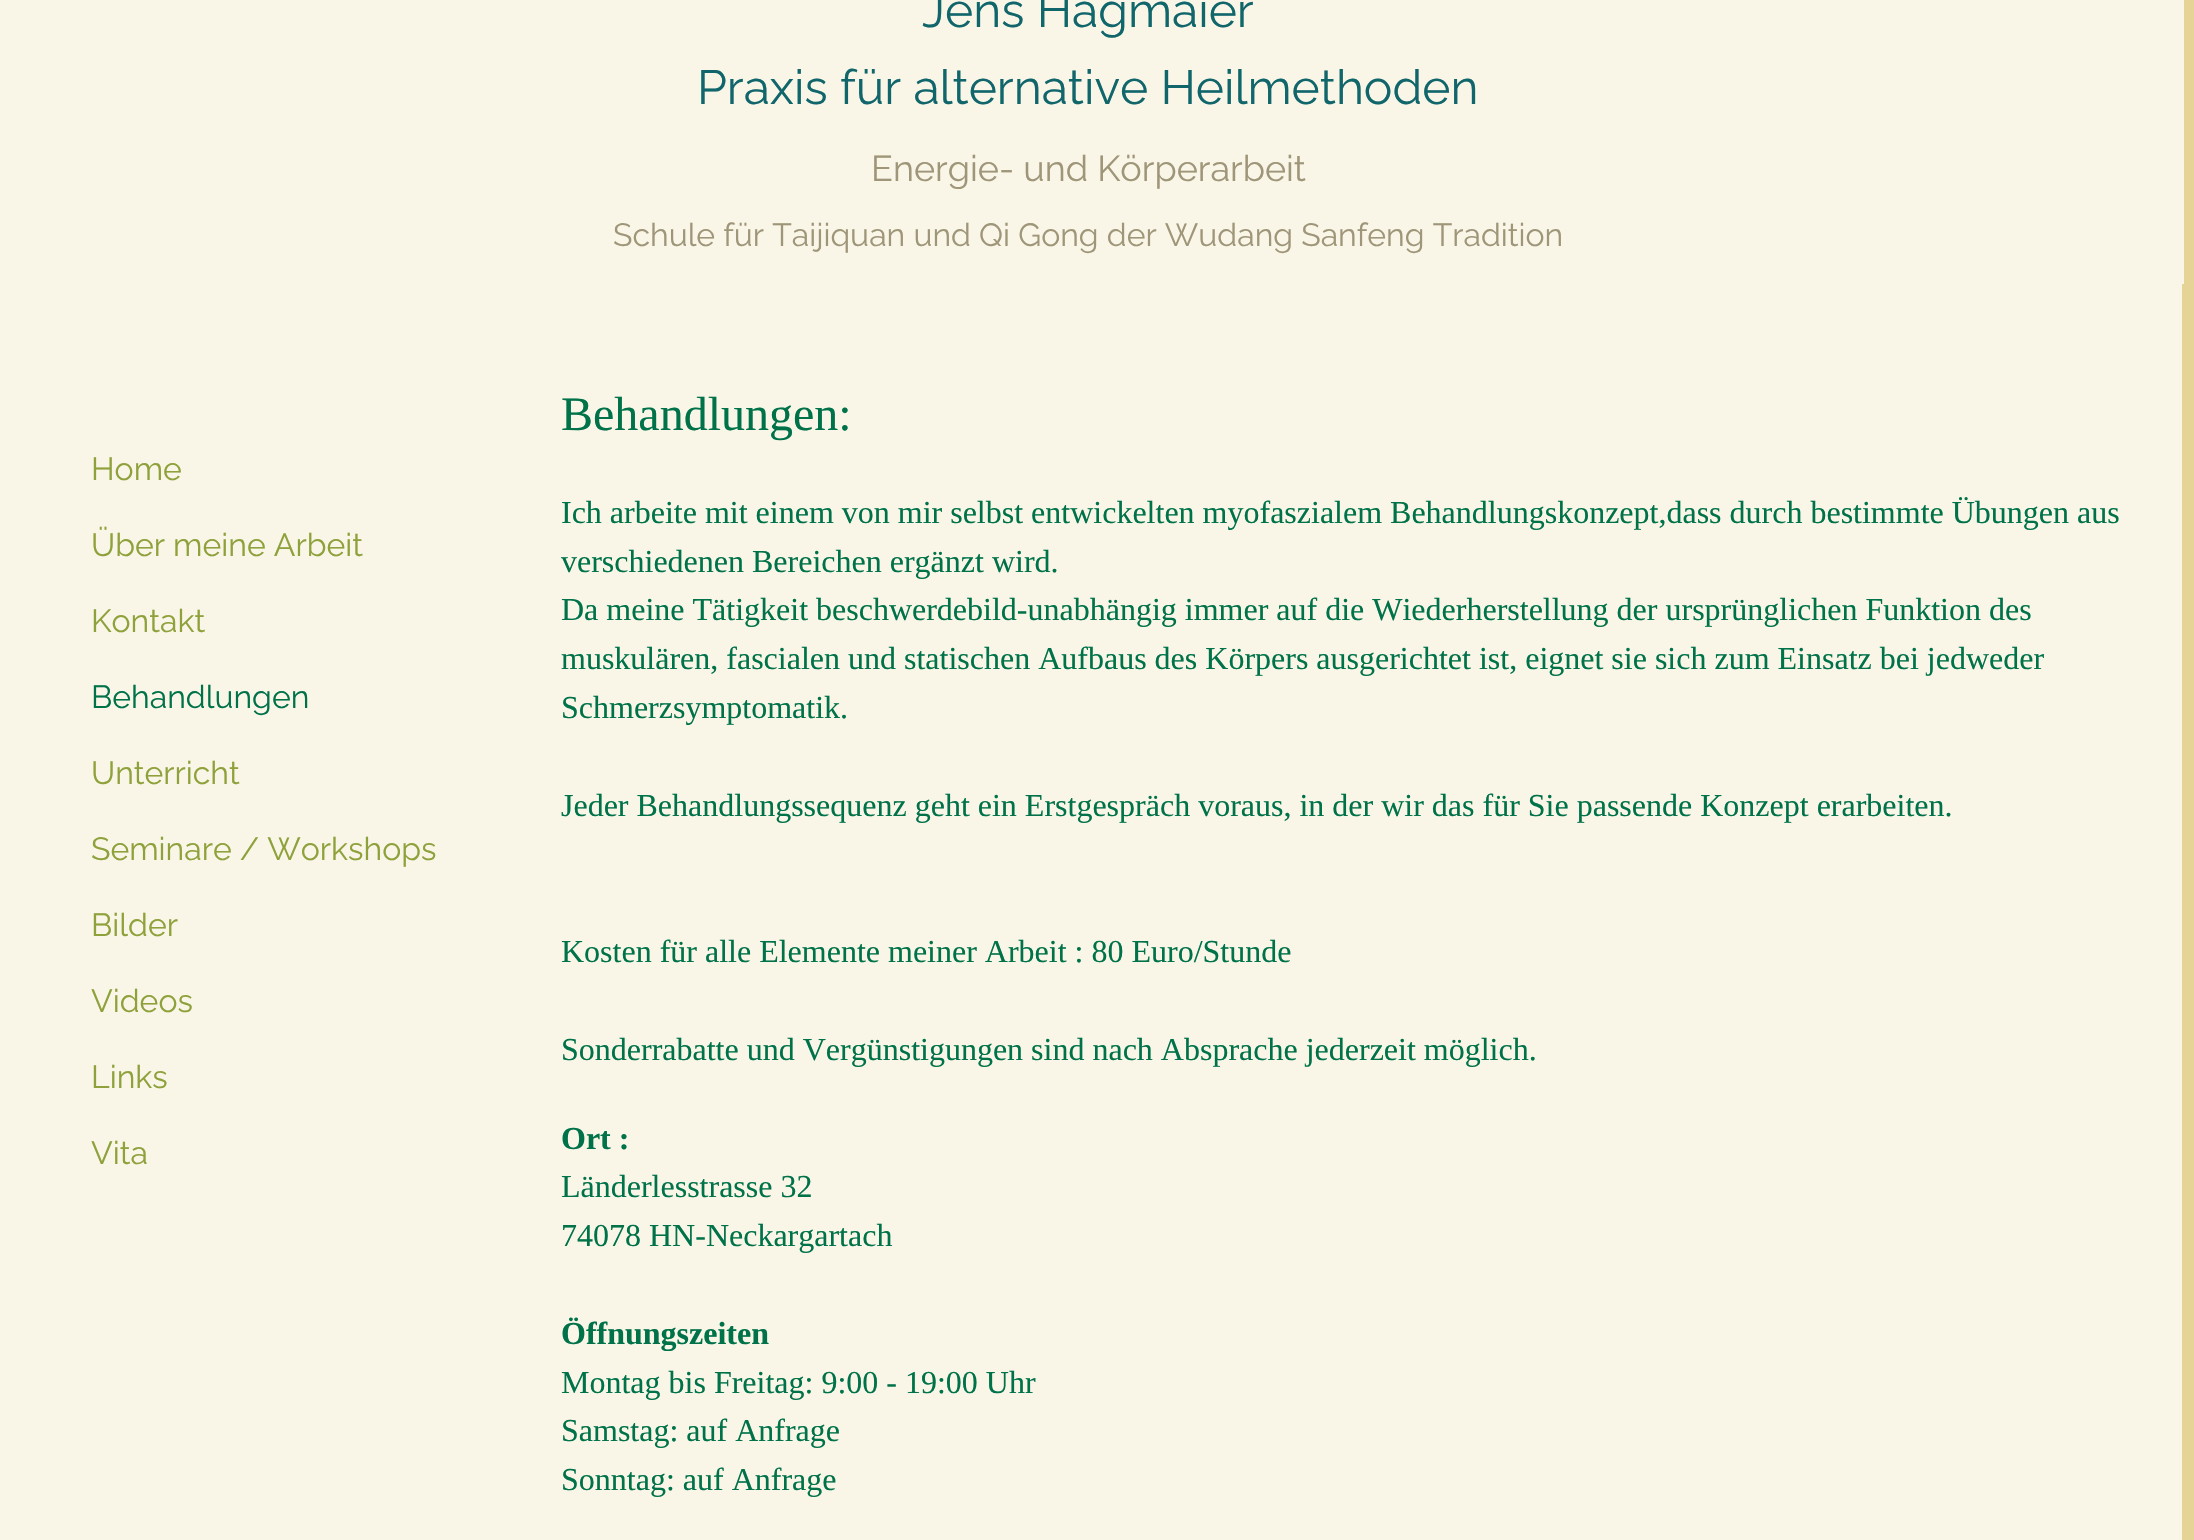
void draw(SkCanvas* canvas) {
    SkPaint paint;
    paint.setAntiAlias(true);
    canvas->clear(0xFFE6D496);
    paint.setColor(0xFFF9F6E7);
    canvas->drawRect(SkRect::MakeXYWH(0, 0, 2184, 284), paint);
    SkFont font1(fontMgr->matchFamilyStyle("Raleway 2", SkFontStyle::Normal()), 48);
    font1.setSubpixel(true);
    paint.setColor(0xFF11666B);
    canvas->drawString("Jens Hagmaier", 922, 27, font1, paint);
    canvas->drawString("Praxis für alternative Heilmethoden", 697, 104, font1, paint);
    SkFont font2(fontMgr->matchFamilyStyle("Raleway 2", SkFontStyle::Normal()), 36);
    font2.setSubpixel(true);
    paint.setColor(0xFF9F9679);
    canvas->drawString("Energie- und Körperarbeit", 871, 181, font2, paint);
    SkFont font3(fontMgr->matchFamilyStyle("Raleway 2", SkFontStyle::Normal()), 32);
    font3.setSubpixel(true);
    canvas->drawString("Schule für Taijiquan und Qi Gong der Wudang Sanfeng Tradition", 613, 246, font3, paint);
    paint.setColor(0xFFF9F6E7);
    canvas->drawRect(SkRect::MakeXYWH(0, 284, 2182, 1256), paint);
    SkFont font4(fontMgr->matchFamilyStyle("Raleway", SkFontStyle::Normal()), 32);
    font4.setSubpixel(true);
    paint.setColor(0xFF8FA13B);
    canvas->drawString("Home", 91, 480, font4, paint);
    canvas->drawString("Über meine Arbeit", 91, 556, font4, paint);
    canvas->drawString("Kontakt", 91, 632, font4, paint);
    paint.setColor(0xFF007249);
    canvas->drawString("Behandlungen", 91, 708, font4, paint);
    paint.setColor(0xFF8FA13B);
    canvas->drawString("Unterricht", 91, 784, font4, paint);
    canvas->drawString("Seminare / Workshops", 91, 860, font4, paint);
    canvas->drawString("Bilder", 91, 936, font4, paint);
    canvas->drawString("Videos", 91, 1012, font4, paint);
    canvas->drawString("Links", 91, 1088, font4, paint);
    canvas->drawString("Vita", 91, 1164, font4, paint);
    SkFont font5(fontMgr->matchFamilyStyle("Liberation Serif", SkFontStyle::Normal()), 48);
    font5.setSubpixel(true);
    paint.setColor(0xFF007249);
    canvas->drawString("Behandlungen:", 561, 430, font5, paint);
    SkFont font6(fontMgr->matchFamilyStyle("Liberation Serif", SkFontStyle::Normal()), 32);
    font6.setSubpixel(true);
    canvas->drawString("Ich arbeite mit einem von mir selbst entwickelten myofaszialem Behandlungskonzept,dass durch bestimmte Übungen aus", 561, 523, font6, paint);
    canvas->drawString("verschiedenen Bereichen ergänzt wird.", 561, 572, font6, paint);
    canvas->drawString("Da meine Tätigkeit beschwerdebild-unabhängig immer auf die Wiederherstellung der ursprünglichen Funktion des", 561, 620, font6, paint);
    canvas->drawString("muskulären, fascialen und statischen Aufbaus des Körpers ausgerichtet ist, eignet sie sich zum Einsatz bei jedweder", 561, 669, font6, paint);
    canvas->drawString("Schmerzsymptomatik.", 561, 718, font6, paint);
    canvas->drawString("Jeder Behandlungssequenz geht ein Erstgespräch voraus, in der wir das für Sie passende Konzept erarbeiten.", 561, 816, font6, paint);
    canvas->drawString("Kosten für alle Elemente meiner Arbeit : 80 Euro/Stunde", 561, 962, font6, paint);
    canvas->drawString("Sonderrabatte und Vergünstigungen sind nach Absprache jederzeit möglich.", 561, 1060, font6, paint);
    SkFont font7(fontMgr->matchFamilyStyle("Liberation Serif", SkFontStyle::Bold()), 32);
    font7.setSubpixel(true);
    canvas->drawString("Ort :", 561, 1149, font7, paint);
    canvas->drawString("Länderlesstrasse 32", 561, 1197, font6, paint);
    canvas->drawString("74078 HN-Neckargartach", 561, 1246, font6, paint);
    canvas->drawString("Öffnungszeiten", 561, 1344, font7, paint);
    canvas->drawString("Montag bis Freitag: 9:00 - 19:00 Uhr", 561, 1393, font6, paint);
    canvas->drawString("Samstag: auf Anfrage", 561, 1441, font6, paint);
    canvas->drawString("Sonntag: auf Anfrage", 561, 1490, font6, paint);
}
